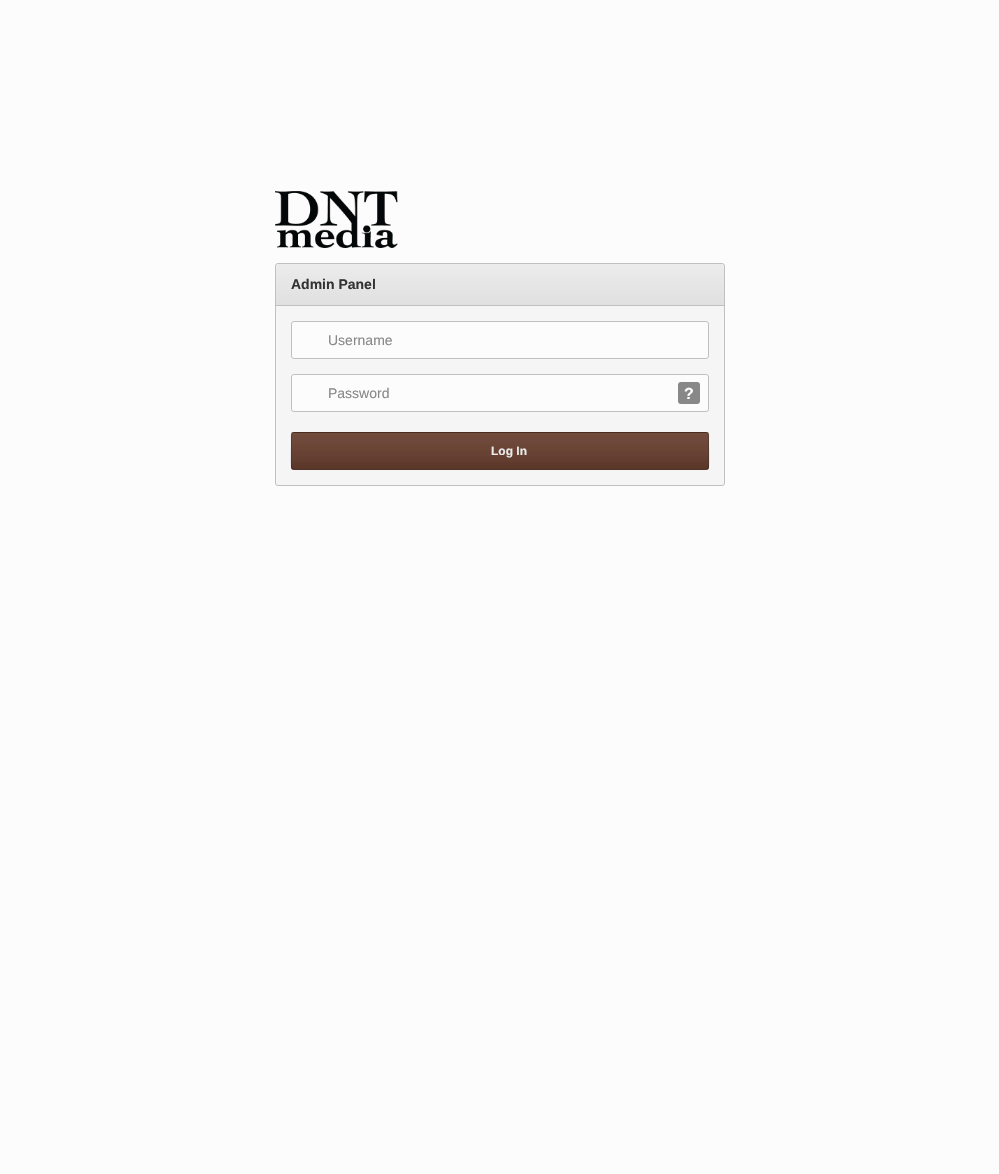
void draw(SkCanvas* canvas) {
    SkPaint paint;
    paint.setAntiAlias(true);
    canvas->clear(0xFFFCFCFC);
    canvas->drawImageRect(SkImages::DeferredFromEncodedData(SkData::MakeFromFileName("img1.png")), SkRect::MakeXYWH(275, 191, 123, 57), SkSamplingOptions());
    paint.setColor(0xFFF5F5F5);
    canvas->drawRoundRect(SkRect::MakeXYWH(275.5f, 263.5f, 449, 222), 2.5f, 2.5f, paint);
    paint.setStyle(SkPaint::kStroke_Style);
    paint.setStrokeWidth(1);
    paint.setColor(0xFFC0C0C0);
    canvas->drawRoundRect(SkRect::MakeXYWH(275.5f, 263.5f, 449, 222), 2.5f, 2.5f, paint);
    paint.setStyle(SkPaint::kFill_Style);
    {
        const SkColor colors[] = {0xFFECECEC, 0xFFE0E0E0};
        const float stops[] = {0, 1};
        const SkPoint ends[] = {{500, 264}, {500, 305}};
        paint.setShader(SkGradientShader::MakeLinear(ends, colors, stops, 2, SkTileMode::kClamp));
        paint.setAlpha(255);
    }
    canvas->drawPath(SkPathBuilder().moveTo(279, 264).lineTo(721, 264).cubicTo(722.5f, 264, 724, 265.5f, 724, 267).lineTo(724, 305).lineTo(276, 305).lineTo(276, 267).cubicTo(276, 265.5f, 277.5f, 264, 279, 264).close().detach(), paint);
    paint.setShader(nullptr);
    paint.setColor(0xFFC0C0C0);
    canvas->drawRect(SkRect::MakeXYWH(276, 305, 448, 1), paint);
    SkFont font1(fontMgr->matchFamilyStyle("Liberation Sans", SkFontStyle::Bold()), 14);
    font1.setSubpixel(true);
    paint.setColor(0xFF333333);
    canvas->drawString("Admin Panel", 291, 289, font1, paint);
    paint.setColor(0xFFFCFCFC);
    canvas->drawRoundRect(SkRect::MakeXYWH(291.5f, 321.5f, 417, 37), 2.5f, 2.5f, paint);
    paint.setStyle(SkPaint::kStroke_Style);
    paint.setColor(0xFFC0C0C0);
    canvas->drawRoundRect(SkRect::MakeXYWH(291.5f, 321.5f, 417, 37), 2.5f, 2.5f, paint);
    SkFont font2(fontMgr->matchFamilyStyle("Liberation Sans", SkFontStyle::Normal()), 14);
    font2.setSubpixel(true);
    paint.setStyle(SkPaint::kFill_Style);
    paint.setColor(0xFF888888);
    canvas->drawString("Username", 328, 345, font2, paint);
    paint.setColor(0xFFFCFCFC);
    canvas->drawRoundRect(SkRect::MakeXYWH(291.5f, 374.5f, 417, 37), 2.5f, 2.5f, paint);
    paint.setStyle(SkPaint::kStroke_Style);
    paint.setColor(0xFFC0C0C0);
    canvas->drawRoundRect(SkRect::MakeXYWH(291.5f, 374.5f, 417, 37), 2.5f, 2.5f, paint);
    paint.setStyle(SkPaint::kFill_Style);
    paint.setColor(0xFF888888);
    canvas->drawString("Password", 328, 398, font2, paint);
    canvas->drawRoundRect(SkRect::MakeXYWH(678, 382, 22, 22), 3, 3, paint);
    SkFont font3(fontMgr->matchFamilyStyle("Liberation Sans", SkFontStyle::Bold()), 16);
    font3.setSubpixel(true);
    paint.setColor(0xFFFFFFFF);
    canvas->drawString("?", 684, 399, font3, paint);
    paint.setColor(0xFF663D2D);
    canvas->drawRoundRect(SkRect::MakeXYWH(291, 432, 418, 38), 3, 3, paint);
    {
        const SkColor colors[] = {0x12FFFFFF, 0x1F000000};
        const float stops[] = {0, 1};
        const SkPoint ends[] = {{500, 397}, {500, 433}};
        paint.setShader(SkGradientShader::MakeLinear(ends, colors, stops, 2, SkTileMode::kClamp));
        paint.setAlpha(255);
    }
    canvas->drawRect(SkRect::MakeXYWH(291, 432, 418, 1), paint);
    {
        const SkColor colors[] = {0x12FFFFFF, 0x1F000000};
        const float stops[] = {0, 1};
        const SkPoint ends[] = {{500, 433}, {500, 469}};
        paint.setShader(SkGradientShader::MakeLinear(ends, colors, stops, 2, SkTileMode::kClamp));
        paint.setAlpha(255);
    }
    canvas->drawRect(SkRect::MakeXYWH(291, 433, 418, 36), paint);
    {
        const SkColor colors[] = {0x12FFFFFF, 0x1F000000};
        const float stops[] = {0, 1};
        const SkPoint ends[] = {{500, 469}, {500, 505}};
        paint.setShader(SkGradientShader::MakeLinear(ends, colors, stops, 2, SkTileMode::kClamp));
        paint.setAlpha(255);
    }
    canvas->drawRect(SkRect::MakeXYWH(291, 469, 418, 1), paint);
    paint.setStyle(SkPaint::kStroke_Style);
    paint.setShader(nullptr);
    paint.setColor(0x4D000000);
    canvas->drawPath(SkPathBuilder().moveTo(708, 469).lineTo(706, 469.5f).lineTo(294, 469.5f).lineTo(292, 469).detach(), paint);
    paint.setColor(0x33000000);
    canvas->drawPath(SkPathBuilder().moveTo(292, 469).cubicTo(290.5f, 467, 291.5f, 444.5f, 291.5f, 440.5f).cubicTo(291.5f, 438.5f, 290.5f, 432.5f, 294, 432.5f).lineTo(706, 432.5f).cubicTo(709.5f, 432.5f, 708.5f, 438.5f, 708.5f, 440.5f).cubicTo(708.5f, 444.5f, 709.5f, 467, 708, 469).detach(), paint);
    SkFont font4(fontMgr->matchFamilyStyle("Liberation Sans", SkFontStyle::Bold()), 12);
    font4.setSubpixel(true);
    paint.setStyle(SkPaint::kFill_Style);
    paint.setColor(0xFFEBEBEB);
    canvas->drawString("Log In", 491, 455, font4, paint);
}
